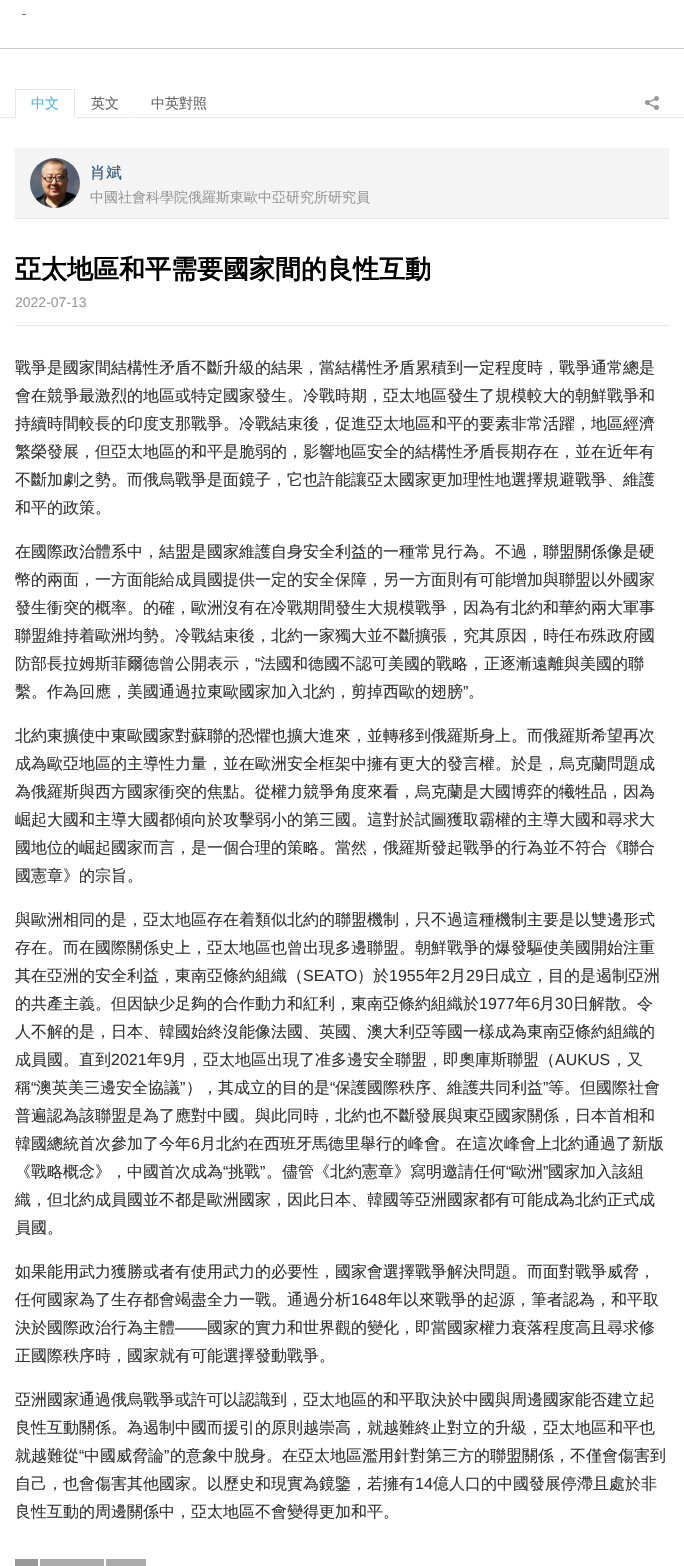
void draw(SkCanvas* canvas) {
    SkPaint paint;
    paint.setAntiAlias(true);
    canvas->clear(0xFFFFFFFF);
    paint.setColor(0xFFCCCCCC);
    canvas->drawRect(SkRect::MakeXYWH(0, 48, 684, 1), paint);
    paint.setColor(0xFF666666);
    canvas->drawRect(SkRect::MakeXYWH(22, 14, 4, 1), paint);
    paint.setColor(0xFFE7E7E7);
    canvas->drawRect(SkRect::MakeXYWH(0, 117, 684, 1), paint);
    canvas->drawRect(SkRect::MakeXYWH(15, 89, 60, 1), paint);
    canvas->drawRect(SkRect::MakeXYWH(74, 89, 1, 29), paint);
    paint.setColor(0xFFFFFFFF);
    canvas->drawRect(SkRect::MakeXYWH(15, 117, 61, 1), paint);
    paint.setColor(0xFFE7E7E7);
    canvas->drawRect(SkRect::MakeXYWH(15, 89, 1, 29), paint);
    SkFont font1(fontMgr->matchFamilyStyle("WenQuanYi Zen Hei", SkFontStyle(500, SkFontStyle::kNormal_Width, SkFontStyle::kUpright_Slant)), 14);
    font1.setSubpixel(true);
    paint.setColor(0xFF50B6DC);
    canvas->drawString("中文", 31, 108, font1, paint);
    paint.setColor(0xFFFFFFFF);
    canvas->drawRect(SkRect::MakeXYWH(134, 117, 2, 1), paint);
    paint.setColor(0xFFE7E7E7);
    canvas->drawRect(SkRect::MakeXYWH(134, 117, 1, 1), paint);
    paint.setColor(0xFF666666);
    canvas->drawString("英文", 91, 108, font1, paint);
    paint.setColor(0xFFFFFFFF);
    canvas->drawRect(SkRect::MakeXYWH(222, 117, 1, 1), paint);
    paint.setColor(0xFFE7E7E7);
    canvas->drawRect(SkRect::MakeXYWH(222, 117, 1, 1), paint);
    paint.setColor(0xFF666666);
    canvas->drawString("中英對照", 151, 108, font1, paint);
    canvas->drawImageRect(SkImages::DeferredFromEncodedData(SkData::MakeFromFileName("img1.png")), SkRect::MakeXYWH(645, 96, 14, 14), SkSamplingOptions());
    paint.setColor(0xFFF4F4F4);
    canvas->drawRect(SkRect::MakeXYWH(15, 148, 654, 70), paint);
    paint.setColor(0xFFE5E5E5);
    canvas->drawRect(SkRect::MakeXYWH(15, 218, 654, 1), paint);
    canvas->drawImageRect(SkImages::DeferredFromEncodedData(SkData::MakeFromFileName("img2.png")), SkRect::MakeXYWH(30, 158, 50, 50), SkSamplingOptions());
    SkFont font2(fontMgr->matchFamilyStyle("WenQuanYi Zen Hei", SkFontStyle(500, SkFontStyle::kNormal_Width, SkFontStyle::kUpright_Slant)), 16);
    font2.setSubpixel(true);
    paint.setColor(0xFF2F5978);
    canvas->drawString("肖斌", 90, 178, font2, paint);
    paint.setColor(0xFF999999);
    canvas->drawString("中國社會科學院俄羅斯東歐中亞研究所研究員", 90, 202, font1, paint);
    SkFont font3(fontMgr->matchFamilyStyle("WenQuanYi Zen Hei", SkFontStyle::Bold()), 26);
    font3.setSubpixel(true);
    paint.setColor(0xFF000000);
    canvas->drawString("亞太地區和平需要國家間的良性互動", 15, 278, font3, paint);
    SkFont font4(fontMgr->matchFamilyStyle("Liberation Sans", SkFontStyle::Normal()), 14);
    font4.setSubpixel(true);
    paint.setColor(0xFF999999);
    canvas->drawString("2022-07-13", 15, 307, font4, paint);
    paint.setColor(0xFFE7E7E7);
    canvas->drawRect(SkRect::MakeXYWH(15, 325, 654, 1), paint);
    paint.setColor(0xFF333333);
    canvas->drawString("戰爭是國家間結構性矛盾不斷升級的結果，當結構性矛盾累積到一定程度時，戰爭通常總是", 15, 373, font2, paint);
    canvas->drawString("會在競爭最激烈的地區或特定國家發生。冷戰時期，亞太地區發生了規模較大的朝鮮戰爭和", 15, 401, font2, paint);
    canvas->drawString("持續時間較長的印度支那戰爭。冷戰結束後，促進亞太地區和平的要素非常活躍，地區經濟", 15, 429, font2, paint);
    canvas->drawString("繁榮發展，但亞太地區的和平是脆弱的，影響地區安全的結構性矛盾長期存在，並在近年有", 15, 457, font2, paint);
    canvas->drawString("不斷加劇之勢。而俄烏戰爭是面鏡子，它也許能讓亞太國家更加理性地選擇規避戰爭、維護", 15, 485, font2, paint);
    canvas->drawString("和平的政策。", 15, 513, font2, paint);
    canvas->drawString("在國際政治體系中，結盟是國家維護自身安全利益的一種常見行為。不過，聯盟關係像是硬", 15, 557, font2, paint);
    canvas->drawString("幣的兩面，一方面能給成員國提供一定的安全保障，另一方面則有可能增加與聯盟以外國家", 15, 585, font2, paint);
    canvas->drawString("發生衝突的概率。的確，歐洲沒有在冷戰期間發生大規模戰爭，因為有北約和華約兩大軍事", 15, 613, font2, paint);
    canvas->drawString("聯盟維持着歐洲均勢。冷戰結束後，北約一家獨大並不斷擴張，究其原因，時任布殊政府國", 15, 641, font2, paint);
    canvas->drawString("防部長拉姆斯菲爾德曾公開表示，", 15, 669, font2, paint);
    SkFont font5(fontMgr->matchFamilyStyle("Liberation Sans", SkFontStyle::Normal()), 16);
    font5.setSubpixel(true);
    canvas->drawString("“", 255, 669, font5, paint);
    canvas->drawString("法國和德國不認可美國的戰略，正逐漸遠離與美國的聯", 260, 669, font2, paint);
    canvas->drawString("繫。作為回應，美國通過拉東歐國家加入北約，剪掉西歐的翅膀", 15, 697, font2, paint);
    canvas->drawString("”", 463, 697, font5, paint);
    canvas->drawString("。", 468, 697, font2, paint);
    canvas->drawString("北約東擴使中東歐國家對蘇聯的恐懼也擴大進來，並轉移到俄羅斯身上。而俄羅斯希望再次", 15, 741, font2, paint);
    canvas->drawString("成為歐亞地區的主導性力量，並在歐洲安全框架中擁有更大的發言權。於是，烏克蘭問題成", 15, 769, font2, paint);
    canvas->drawString("為俄羅斯與西方國家衝突的焦點。從權力競爭角度來看，烏克蘭是大國博弈的犧牲品，因為", 15, 797, font2, paint);
    canvas->drawString("崛起大國和主導大國都傾向於攻擊弱小的第三國。這對於試圖獲取霸權的主導大國和尋求大", 15, 825, font2, paint);
    canvas->drawString("國地位的崛起國家而言，是一個合理的策略。當然，俄羅斯發起戰爭的行為並不符合《聯合", 15, 853, font2, paint);
    canvas->drawString("國憲章》的宗旨。", 15, 881, font2, paint);
    canvas->drawString("與歐洲相同的是，亞太地區存在着類似北約的聯盟機制，只不過這種機制主要是以雙邊形式", 15, 925, font2, paint);
    canvas->drawString("存在。而在國際關係史上，亞太地區也曾出現多邊聯盟。朝鮮戰爭的爆發驅使美國開始注重", 15, 953, font2, paint);
    canvas->drawString("其在亞洲的安全利益，東南亞條約組織（", 15, 981, font2, paint);
    canvas->drawString("SEATO", 303, 981, font5, paint);
    canvas->drawString("）於", 357, 981, font2, paint);
    canvas->drawString("1955", 389, 981, font5, paint);
    canvas->drawString("年", 425, 981, font2, paint);
    canvas->drawString("2", 441, 981, font5, paint);
    canvas->drawString("月", 450, 981, font2, paint);
    canvas->drawString("29", 466, 981, font5, paint);
    canvas->drawString("日成立，目的是遏制亞洲", 484, 981, font2, paint);
    canvas->drawString("的共產主義。但因缺少足夠的合作動力和紅利，東南亞條約組織於", 15, 1009, font2, paint);
    canvas->drawString("1977", 479, 1009, font5, paint);
    canvas->drawString("年", 515, 1009, font2, paint);
    canvas->drawString("6", 531, 1009, font5, paint);
    canvas->drawString("月", 539, 1009, font2, paint);
    canvas->drawString("30", 555, 1009, font5, paint);
    canvas->drawString("日解散。令", 573, 1009, font2, paint);
    canvas->drawString("人不解的是，日本、韓國始終沒能像法國、英國、澳大利亞等國一樣成為東南亞條約組織的", 15, 1037, font2, paint);
    canvas->drawString("成員國。直到", 15, 1065, font2, paint);
    canvas->drawString("2021", 111, 1065, font5, paint);
    canvas->drawString("年", 147, 1065, font2, paint);
    canvas->drawString("9", 163, 1065, font5, paint);
    canvas->drawString("月，亞太地區出現了准多邊安全聯盟，即奧庫斯聯盟（", 171, 1065, font2, paint);
    canvas->drawString("AUKUS", 555, 1065, font5, paint);
    canvas->drawString("，又", 611, 1065, font2, paint);
    canvas->drawString("稱", 15, 1093, font2, paint);
    canvas->drawString("“", 31, 1093, font5, paint);
    canvas->drawString("澳英美三邊安全協議", 36, 1093, font2, paint);
    canvas->drawString("”", 180, 1093, font5, paint);
    canvas->drawString("），其成立的目的是", 186, 1093, font2, paint);
    canvas->drawString("“", 330, 1093, font5, paint);
    canvas->drawString("保護國際秩序、維護共同利益", 335, 1093, font2, paint);
    canvas->drawString("”", 543, 1093, font5, paint);
    canvas->drawString("等。但國際社會", 548, 1093, font2, paint);
    canvas->drawString("普遍認為該聯盟是為了應對中國。與此同時，北約也不斷發展與東亞國家關係，日本首相和", 15, 1121, font2, paint);
    canvas->drawString("韓國總統首次參加了今年", 15, 1149, font2, paint);
    canvas->drawString("6", 191, 1149, font5, paint);
    canvas->drawString("月北約在西班牙馬德里舉行的峰會。在這次峰會上北約通過了新版", 200, 1149, font2, paint);
    canvas->drawString("《戰略概念》，中國首次成為", 15, 1177, font2, paint);
    canvas->drawString("“", 223, 1177, font5, paint);
    canvas->drawString("挑戰", 228, 1177, font2, paint);
    canvas->drawString("”", 260, 1177, font5, paint);
    canvas->drawString("。儘管《北約憲章》寫明邀請任何", 266, 1177, font2, paint);
    canvas->drawString("“", 506, 1177, font5, paint);
    canvas->drawString("歐洲", 511, 1177, font2, paint);
    canvas->drawString("”", 543, 1177, font5, paint);
    canvas->drawString("國家加入該組", 548, 1177, font2, paint);
    canvas->drawString("織，但北約成員國並不都是歐洲國家，因此日本、韓國等亞洲國家都有可能成為北約正式成", 15, 1205, font2, paint);
    canvas->drawString("員國。", 15, 1233, font2, paint);
    canvas->drawString("如果能用武力獲勝或者有使用武力的必要性，國家會選擇戰爭解決問題。而面對戰爭威脅，", 15, 1277, font2, paint);
    canvas->drawString("任何國家為了生存都會竭盡全力一戰。通過分析", 15, 1305, font2, paint);
    canvas->drawString("1648", 351, 1305, font5, paint);
    canvas->drawString("年以來戰爭的起源，筆者認為，和平取", 387, 1305, font2, paint);
    canvas->drawString("決於國際政治行為主體", 15, 1333, font2, paint);
    canvas->drawString("——", 175, 1333, font5, paint);
    canvas->drawString("國家的實力和世界觀的變化，即當國家權力衰落程度高且尋求修", 207, 1333, font2, paint);
    canvas->drawString("正國際秩序時，國家就有可能選擇發動戰爭。", 15, 1361, font2, paint);
    canvas->drawString("亞洲國家通過俄烏戰爭或許可以認識到，亞太地區的和平取決於中國與周邊國家能否建立起", 15, 1405, font2, paint);
    canvas->drawString("良性互動關係。為遏制中國而援引的原則越崇高，就越難終止對立的升級，亞太地區和平也", 15, 1433, font2, paint);
    canvas->drawString("就越難從", 15, 1461, font2, paint);
    canvas->drawString("“", 79, 1461, font5, paint);
    canvas->drawString("中國威脅論", 84, 1461, font2, paint);
    canvas->drawString("”", 164, 1461, font5, paint);
    canvas->drawString("的意象中脫身。在亞太地區濫用針對第三方的聯盟關係，不僅會傷害到", 170, 1461, font2, paint);
    canvas->drawString("自己，也會傷害其他國家。以歷史和現實為鏡鑒，若擁有", 15, 1489, font2, paint);
    canvas->drawString("14", 415, 1489, font5, paint);
    canvas->drawString("億人口的中國發展停滯且處於非", 433, 1489, font2, paint);
    canvas->drawString("良性互動的周邊關係中，亞太地區不會變得更加和平。", 15, 1517, font2, paint);
    paint.setColor(0xFF999999);
    canvas->drawRect(SkRect::MakeXYWH(15, 1559, 23, 7), paint);
    paint.setColor(0xFFABABAB);
    canvas->drawRect(SkRect::MakeXYWH(40, 1559, 64, 7), paint);
    canvas->drawRect(SkRect::MakeXYWH(106, 1559, 40, 7), paint);
}
